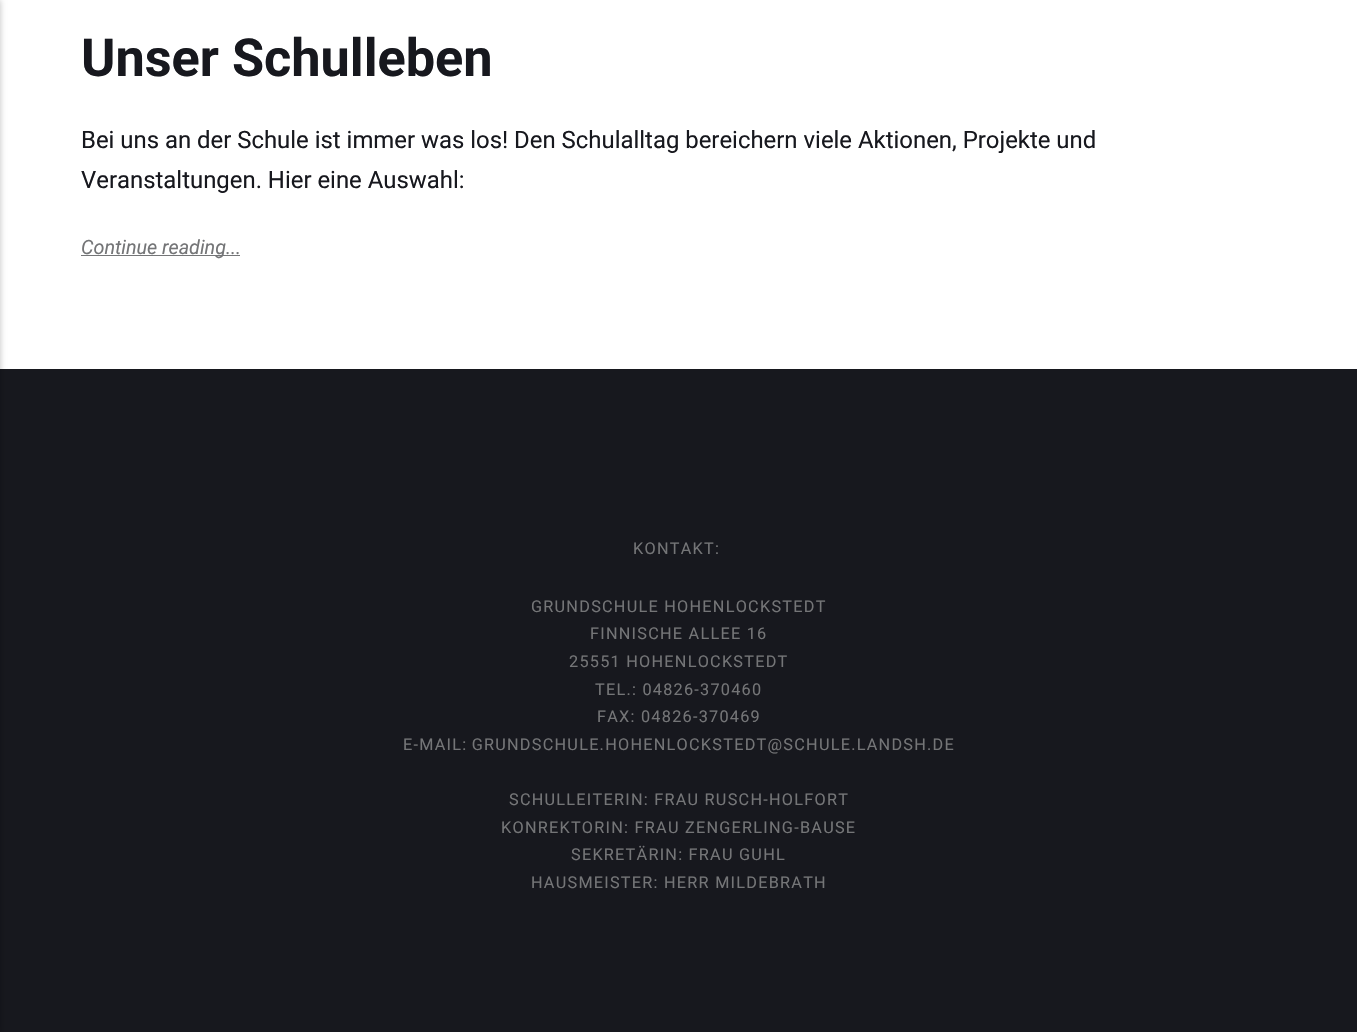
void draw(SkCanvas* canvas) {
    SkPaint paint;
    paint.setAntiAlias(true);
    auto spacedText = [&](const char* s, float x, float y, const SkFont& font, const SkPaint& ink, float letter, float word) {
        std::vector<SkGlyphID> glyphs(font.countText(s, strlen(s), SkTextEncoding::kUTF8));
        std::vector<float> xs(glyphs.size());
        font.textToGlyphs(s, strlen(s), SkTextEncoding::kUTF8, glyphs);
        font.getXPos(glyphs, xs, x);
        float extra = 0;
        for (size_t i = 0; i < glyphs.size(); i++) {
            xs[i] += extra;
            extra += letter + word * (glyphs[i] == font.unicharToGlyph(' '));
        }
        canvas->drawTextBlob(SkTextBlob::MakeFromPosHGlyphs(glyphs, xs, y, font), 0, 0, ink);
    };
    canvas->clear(0xFFFFFFFF);
    paint.setColor(0xFF17181E);
    canvas->drawRect(SkRect::MakeXYWH(0, 369, 1357, 663), paint);
    paint.setColor(0x40000000);
    paint.setMaskFilter(SkMaskFilter::MakeBlur(kNormal_SkBlurStyle, 3));
    canvas->drawRect(SkRect::MakeXYWH(-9, 0, 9, 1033), paint);
    paint.setMaskFilter(nullptr);
    SkFont font1(fontMgr->matchFamilyStyle("Roboto", SkFontStyle::Bold()), 52.25f);
    font1.setSubpixel(true);
    paint.setColor(0xFF17181E);
    canvas->drawString("Unser Schulleben", 81, 76, font1, paint);
    SkFont font2(fontMgr->matchFamilyStyle("Roboto", SkFontStyle::Normal()), 23.9f);
    font2.setSubpixel(true);
    canvas->drawString("Bei uns an der Schule ist immer was los! Den Schulalltag bereichern viele Aktionen, Projekte und", 81, 148, font2, paint);
    canvas->drawString("Veranstaltungen. Hier eine Auswahl:", 81, 188, font2, paint);
    paint.setColor(0xFF747577);
    canvas->drawRect(SkRect::MakeXYWH(81, 255, 159, 1), paint);
    SkFont font3(fontMgr->matchFamilyStyle("Roboto", SkFontStyle::Italic()), 19.75f);
    font3.setSubpixel(true);
    canvas->drawString("Continue reading...", 81, 254, font3, paint);
    SkFont font4(fontMgr->matchFamilyStyle("Roboto", SkFontStyle::Normal()), 16.25f);
    font4.setSubpixel(true);
    spacedText("KONTAKT:", 633, 554, font4, paint, 1.25f, 0);
    spacedText("GRUNDSCHULE HOHENLOCKSTEDT", 531, 612, font4, paint, 1.25f, 0);
    spacedText("FINNISCHE ALLEE 16", 590, 639, font4, paint, 1.25f, 0);
    spacedText("25551 HOHENLOCKSTEDT", 569, 667, font4, paint, 1.25f, 0);
    spacedText("TEL.: 04826-370460", 595, 695, font4, paint, 1.25f, 0);
    spacedText("FAX: 04826-370469", 597, 722, font4, paint, 1.25f, 0);
    spacedText("E-MAIL: GRUNDSCHULE.HOHENLOCKSTEDT@SCHULE.LANDSH.DE", 403, 750, font4, paint, 1.25f, -1);
    spacedText("SCHULLEITERIN: FRAU RUSCH-HOLFORT", 509, 805, font4, paint, 1.25f, 0);
    spacedText("KONREKTORIN: FRAU ZENGERLING-BAUSE", 501, 833, font4, paint, 1.25f, 0);
    spacedText("SEKRETÄRIN: FRAU GUHL", 571, 860, font4, paint, 1.25f, 0);
    spacedText("HAUSMEISTER: HERR MILDEBRATH", 531, 888, font4, paint, 1.25f, 0);
}
